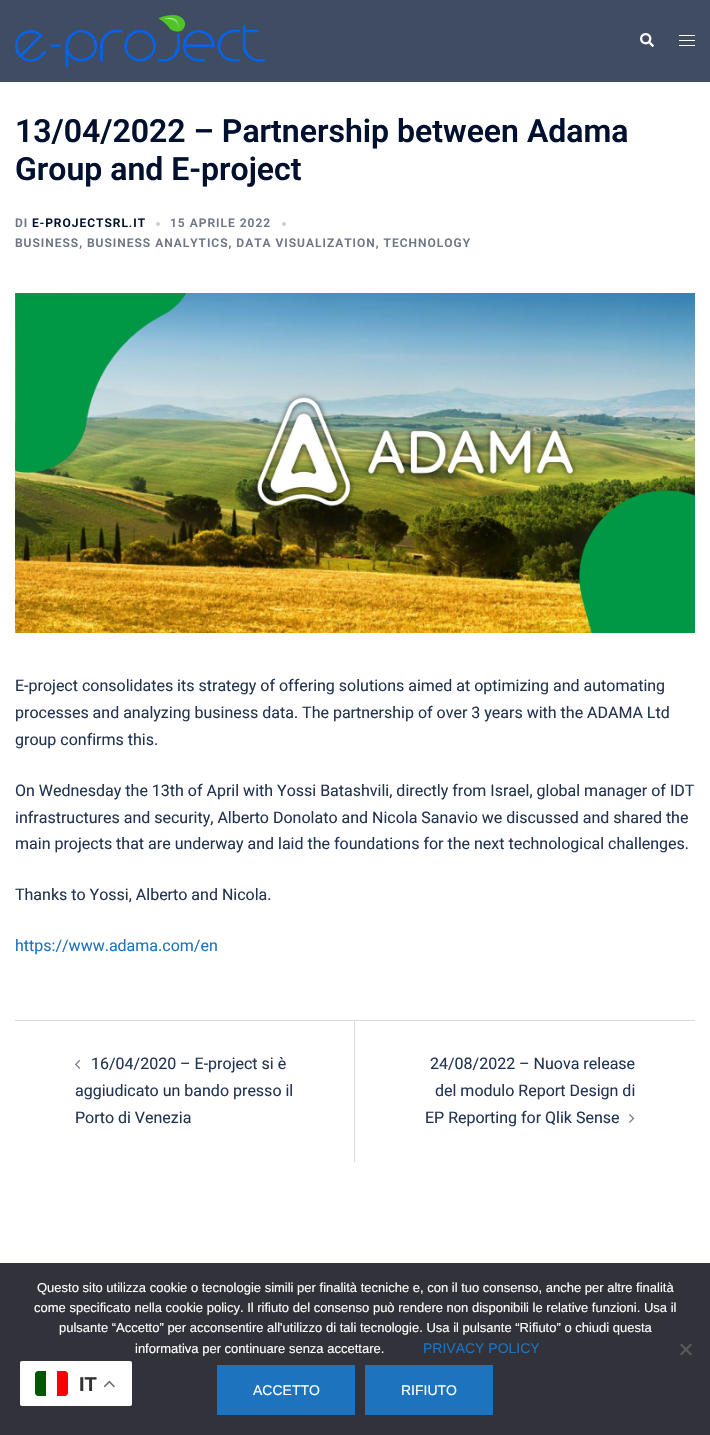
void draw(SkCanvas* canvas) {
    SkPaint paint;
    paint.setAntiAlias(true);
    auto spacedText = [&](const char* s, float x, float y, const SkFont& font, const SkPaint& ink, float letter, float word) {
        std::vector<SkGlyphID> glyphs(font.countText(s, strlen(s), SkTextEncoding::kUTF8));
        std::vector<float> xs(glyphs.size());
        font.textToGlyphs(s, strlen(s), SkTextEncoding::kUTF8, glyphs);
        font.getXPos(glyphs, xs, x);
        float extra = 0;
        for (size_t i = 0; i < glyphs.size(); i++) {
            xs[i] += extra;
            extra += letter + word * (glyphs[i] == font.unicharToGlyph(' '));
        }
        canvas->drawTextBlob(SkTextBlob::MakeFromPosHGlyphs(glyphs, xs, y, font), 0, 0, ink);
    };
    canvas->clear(0xFFFFFFFF);
    paint.setColor(0xFF404C62);
    canvas->drawRect(SkRect::MakeXYWH(0, 0, 710, 82), paint);
    canvas->drawImageRect(SkImages::DeferredFromEncodedData(SkData::MakeFromFileName("img1.png")), SkRect::MakeXYWH(15, 15, 250, 52), SkSamplingOptions());
    canvas->drawImageRect(SkImages::DeferredFromEncodedData(SkData::MakeFromFileName("img2.png")), SkRect::MakeXYWH(640, 33, 14, 14), SkSamplingOptions());
    paint.setColor(0xFFFFFFFF);
    canvas->drawRect(SkRect::MakeXYWH(679, 35, 16, 1), paint);
    canvas->drawRect(SkRect::MakeXYWH(679, 40, 16, 1), paint);
    canvas->drawRect(SkRect::MakeXYWH(679, 45, 16, 1), paint);
    SkFont font1(fontMgr->matchFamilyStyle("Roboto", SkFontStyle(600, SkFontStyle::kNormal_Width, SkFontStyle::kUpright_Slant)), 32);
    font1.setSubpixel(true);
    paint.setColor(0xFF00102E);
    canvas->drawString("13/04/2022 – Partnership between Adama", 15, 142, font1, paint);
    canvas->drawString("Group and E-project", 15, 180, font1, paint);
    SkFont font2(fontMgr->matchFamilyStyle("Roboto", SkFontStyle(600, SkFontStyle::kNormal_Width, SkFontStyle::kUpright_Slant)), 12);
    font2.setSubpixel(true);
    paint.setColor(0xFF6D7685);
    spacedText("DI", 15, 227, font2, paint, 1, 0);
    paint.setColor(0xFF00102E);
    spacedText("E-PROJECTSRL.IT", 32, 227, font2, paint, 1, 0);
    paint.setColor(0xFFCCCFD5);
    canvas->drawCircle(158, 224, 2, paint);
    paint.setColor(0xFF6D7685);
    spacedText("15 APRILE 2022", 170, 227, font2, paint, 1, 0);
    paint.setColor(0xFFCCCFD5);
    canvas->drawCircle(284, 224, 2, paint);
    paint.setColor(0xFF6D7685);
    spacedText("BUSINESS, BUSINESS ANALYTICS, DATA VISUALIZATION, TECHNOLOGY", 15, 247, font2, paint, 1, 0);
    canvas->drawImageRect(SkImages::DeferredFromEncodedData(SkData::MakeFromFileName("img3.png")), SkRect::MakeXYWH(15, 293, 680, 340), SkSamplingOptions());
    SkFont font3(fontMgr->matchFamilyStyle("Roboto", SkFontStyle::Normal()), 16);
    font3.setSubpixel(true);
    paint.setColor(0xFF233452);
    canvas->drawString("E-project consolidates its strategy of offering solutions aimed at optimizing and automating", 15, 691, font3, paint);
    canvas->drawString("processes and analyzing business data. The partnership of over 3 years with the ADAMA Ltd", 15, 718, font3, paint);
    canvas->drawString("group confirms this.", 15, 745, font3, paint);
    canvas->drawString("On Wednesday the 13th of April with Yossi Batashvili, directly from Israel, global manager of IDT", 15, 796, font3, paint);
    canvas->drawString("infrastructures and security, Alberto Donolato and Nicola Sanavio we discussed and shared the", 15, 823, font3, paint);
    canvas->drawString("main projects that are underway and laid the foundations for the next technological challenges.", 15, 849, font3, paint);
    canvas->drawString("Thanks to Yossi, Alberto and Nicola.", 15, 900, font3, paint);
    paint.setColor(0xFF1E73BE);
    canvas->drawString("https://www.adama.com/en", 15, 951, font3, paint);
    paint.setColor(0xFFDBDBDB);
    canvas->drawRect(SkRect::MakeXYWH(15, 1020, 680, 1), paint);
    canvas->drawRect(SkRect::MakeXYWH(354, 1021, 1, 141), paint);
    canvas->drawImageRect(SkImages::DeferredFromEncodedData(SkData::MakeFromFileName("img4.png")), SkRect::MakeXYWH(75, 1060, 6, 9), SkSamplingOptions());
    paint.setColor(0xFF233452);
    canvas->drawString("16/04/2020 – E-project si è", 91, 1069, font3, paint);
    canvas->drawString("aggiudicato un bando presso il", 75, 1096, font3, paint);
    canvas->drawString("Porto di Venezia", 75, 1123, font3, paint);
    canvas->drawString("24/08/2022 – Nuova release", 430, 1069, font3, paint);
    canvas->drawString("del modulo Report Design di", 435, 1096, font3, paint);
    canvas->drawString("EP Reporting for Qlik Sense", 425, 1123, font3, paint);
    canvas->drawImageRect(SkImages::DeferredFromEncodedData(SkData::MakeFromFileName("img5.png")), SkRect::MakeXYWH(629, 1114, 6, 9), SkSamplingOptions());
    paint.setColor(0xFF32323A);
    canvas->drawRect(SkRect::MakeXYWH(0, 1263, 710, 172), paint);
    SkFont font4(fontMgr->matchFamilyStyle("Liberation Sans", SkFontStyle::Normal()), 13);
    font4.setSubpixel(true);
    paint.setColor(0xFFFFFFFF);
    canvas->drawString("Questo sito utilizza cookie o tecnologie simili per finalità tecniche e, con il tuo consenso, anche per altre finalità", 37, 1292, font4, paint);
    canvas->drawString("come specificato nella cookie policy. Il rifiuto del consenso può rendere non disponibili le relative funzioni. Usa il", 34, 1312, font4, paint);
    canvas->drawString("pulsante “Accetto” per acconsentire all'utilizzo di tali tecnologie. Usa il pulsante “Rifiuto” o chiudi questa", 59, 1332, font4, paint);
    canvas->drawString("informativa per continuare senza accettare.", 135, 1353, font4, paint);
    SkFont font5(fontMgr->matchFamilyStyle("Liberation Sans", SkFontStyle::Normal()), 14);
    font5.setSubpixel(true);
    paint.setColor(0xFF1E73BE);
    canvas->drawString("PRIVACY POLICY", 423, 1353, font5, paint);
    paint.setColor(0xFF59595D);
    canvas->drawPath(SkPathBuilder().moveTo(690.5f, 1343.5f).lineTo(692, 1345).lineTo(681.5f, 1355.5f).lineTo(680, 1354).close().detach(), paint);
    canvas->drawPath(SkPathBuilder().moveTo(680, 1345).lineTo(681.5f, 1343.5f).lineTo(692, 1354).lineTo(690.5f, 1355.5f).close().detach(), paint);
    paint.setColor(0xFF1E73BE);
    canvas->drawRect(SkRect::MakeXYWH(217, 1365, 138, 50), paint);
    paint.setColor(0xFFFFFFFF);
    canvas->drawString("ACCETTO", 253, 1395, font5, paint);
    paint.setColor(0xFF1E73BE);
    canvas->drawRect(SkRect::MakeXYWH(365, 1365, 128, 50), paint);
    paint.setColor(0xFFFFFFFF);
    canvas->drawString("RIFIUTO", 401, 1395, font5, paint);
    canvas->drawRoundRect(SkRect::MakeXYWH(20, 1361, 112, 45), 2, 2, paint);
    paint.setColor(0xFF005700);
    canvas->drawPath(SkPathBuilder().moveTo(38, 1371).lineTo(46, 1371).lineTo(46, 1396).lineTo(38, 1396).cubicTo(36.5f, 1396, 35, 1394.5f, 35, 1393).lineTo(35, 1374).cubicTo(35, 1372.5f, 36.5f, 1371, 38, 1371).close().detach(), paint);
    paint.setColor(0xFFFC0000);
    canvas->drawPath(SkPathBuilder().moveTo(57, 1371).lineTo(65, 1371).cubicTo(66.5f, 1371, 68, 1372.5f, 68, 1374).lineTo(68, 1393).cubicTo(68, 1394.5f, 66.5f, 1396, 65, 1396).lineTo(57, 1396).close().detach(), paint);
    SkFont font6(fontMgr->matchFamilyStyle("Liberation Sans", SkFontStyle::Bold()), 20);
    font6.setSubpixel(true);
    paint.setColor(0xFF333333);
    canvas->drawString("IT", 79, 1391, font6, paint);
    canvas->drawImageRect(SkImages::DeferredFromEncodedData(SkData::MakeFromFileName("img6.png")), SkRect::MakeXYWH(104, 1380, 11, 8), SkSamplingOptions());
}
